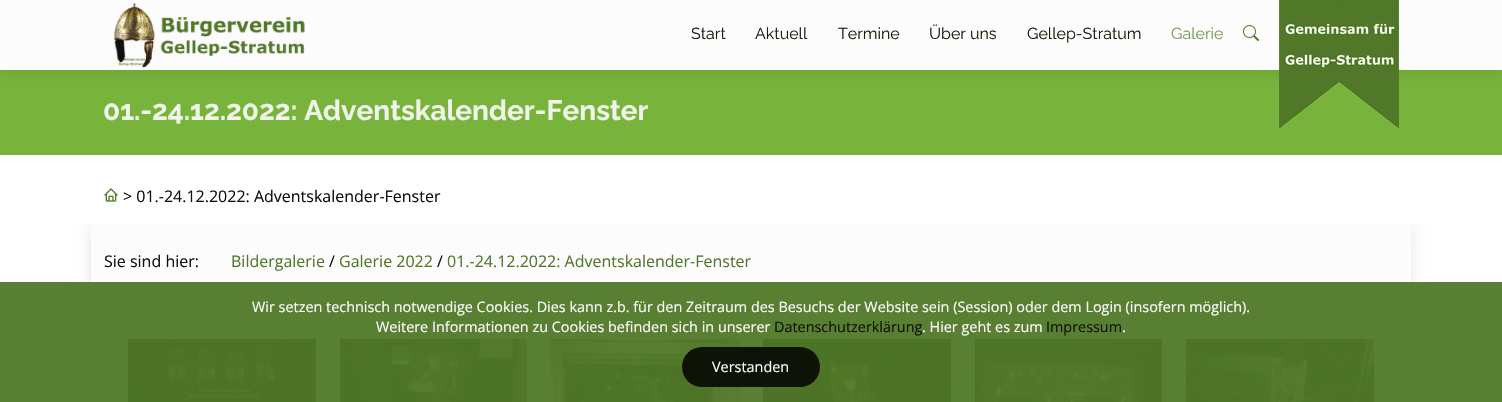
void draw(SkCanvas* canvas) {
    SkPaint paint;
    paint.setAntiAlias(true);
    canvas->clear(0xFFFFFFFF);
    paint.setColor(0xFF78B43C);
    canvas->drawRect(SkRect::MakeXYWH(0, 70, 1502, 85), paint);
    paint.setColor(0x1A000000);
    paint.setMaskFilter(SkMaskFilter::MakeBlur(kNormal_SkBlurStyle, 7.5f));
    canvas->drawRect(SkRect::MakeXYWH(0, 2, 1502, 70), paint);
    paint.setMaskFilter(nullptr);
    paint.setColor(0xFFFCFCFC);
    canvas->drawRect(SkRect::MakeXYWH(0, 0, 1502, 70), paint);
    canvas->drawImageRect(SkImages::DeferredFromEncodedData(SkData::MakeFromFileName("img1.png")), SkRect::MakeXYWH(113, 3, 192, 65), SkSamplingOptions());
    SkFont font1(fontMgr->matchFamilyStyle("Raleway", SkFontStyle::Normal()), 16);
    font1.setSubpixel(true);
    paint.setColor(0xFF141E0A);
    canvas->drawString("Start", 691, 39, font1, paint);
    canvas->drawString("Aktuell", 755, 39, font1, paint);
    canvas->drawString("Termine", 838, 39, font1, paint);
    canvas->drawString("Über uns", 929, 39, font1, paint);
    canvas->drawString("Gellep-Stratum", 1027, 39, font1, paint);
    paint.setColor(0xFF7B995D);
    canvas->drawString("Galerie", 1171, 39, font1, paint);
    canvas->drawImageRect(SkImages::DeferredFromEncodedData(SkData::MakeFromFileName("img2.png")), SkRect::MakeXYWH(1243, 25, 16, 16), SkSamplingOptions());
    canvas->drawImageRect(SkImages::DeferredFromEncodedData(SkData::MakeFromFileName("img3.png")), SkRect::MakeXYWH(1279, 0, 120, 130), SkSamplingOptions());
    SkFont font2(fontMgr->matchFamilyStyle("Raleway", SkFontStyle::Bold()), 28);
    font2.setSubpixel(true);
    paint.setColor(0xFFEFF5E9);
    canvas->drawString("01.-24.12.2022: Adventskalender-Fenster", 103, 120, font2, paint);
    canvas->drawImageRect(SkImages::DeferredFromEncodedData(SkData::MakeFromFileName("img4.png")), SkRect::MakeXYWH(104, 188, 14, 14), SkSamplingOptions());
    SkFont font3(fontMgr->matchFamilyStyle("Open Sans", SkFontStyle::Normal()), 16);
    font3.setSubpixel(true);
    paint.setColor(0xFF0F0F0F);
    canvas->drawString("> 01.-24.12.2022: Adventskalender-Fenster", 123, 202, font3, paint);
    canvas->save();
    canvas->clipRect(SkRect::MakeXYWH(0, 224, 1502, 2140));
    paint.setColor(0x1A000000);
    paint.setMaskFilter(SkMaskFilter::MakeBlur(kNormal_SkBlurStyle, 7.5f));
    canvas->drawRect(SkRect::MakeXYWH(91, 226, 1320, 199), paint);
    paint.setMaskFilter(nullptr);
    canvas->restore();
    paint.setColor(0xFFFCFCFC);
    canvas->drawRect(SkRect::MakeXYWH(91, 224, 1320, 178), paint);
    paint.setColor(0xFF0F0F0F);
    canvas->drawString("Sie sind hier:", 104, 267, font3, paint);
    paint.setColor(0xFF507828);
    canvas->drawString("Bildergalerie", 231, 267, font3, paint);
    paint.setColor(0xFF0F0F0F);
    canvas->drawString("/", 329, 267, font3, paint);
    paint.setColor(0xFF507828);
    canvas->drawString("Galerie 2022", 339, 267, font3, paint);
    paint.setColor(0xFF0F0F0F);
    canvas->drawString("/", 437, 267, font3, paint);
    paint.setColor(0xFF507828);
    canvas->drawString("01.-24.12.2022: Adventskalender-Fenster", 447, 267, font3, paint);
    canvas->drawImageRect(SkImages::DeferredFromEncodedData(SkData::MakeFromFileName("img5.png")), SkRect::MakeXYWH(128, 339, 188, 63), SkSamplingOptions());
    canvas->drawImageRect(SkImages::DeferredFromEncodedData(SkData::MakeFromFileName("img6.png")), SkRect::MakeXYWH(340, 339, 187, 63), SkSamplingOptions());
    canvas->drawImageRect(SkImages::DeferredFromEncodedData(SkData::MakeFromFileName("img7.png")), SkRect::MakeXYWH(551, 339, 188, 63), SkSamplingOptions());
    canvas->drawImageRect(SkImages::DeferredFromEncodedData(SkData::MakeFromFileName("img8.png")), SkRect::MakeXYWH(763, 339, 188, 63), SkSamplingOptions());
    canvas->drawImageRect(SkImages::DeferredFromEncodedData(SkData::MakeFromFileName("img9.png")), SkRect::MakeXYWH(975, 339, 187, 63), SkSamplingOptions());
    canvas->drawImageRect(SkImages::DeferredFromEncodedData(SkData::MakeFromFileName("img10.png")), SkRect::MakeXYWH(1186, 339, 188, 63), SkSamplingOptions());
    paint.setColor(0xF2507828);
    canvas->drawRect(SkRect::MakeXYWH(0, 282, 1502, 120), paint);
    SkFont font4(fontMgr->matchFamilyStyle("Open Sans", SkFontStyle::Normal()), 14.4f);
    font4.setSubpixel(true);
    paint.setColor(0xFFFCFCFC);
    canvas->drawString("Wir setzen technisch notwendige Cookies. Dies kann z.b. für den Zeitraum des Besuchs der Website sein (Session) oder dem Login (insofern möglich).", 252, 312, font4, paint);
    canvas->drawString("Weitere Informationen zu Cookies befinden sich in unserer", 376, 332, font4, paint);
    paint.setColor(0xFF0D1306);
    canvas->drawString("Datenschutzerklärung", 774, 332, font4, paint);
    paint.setColor(0xFFFCFCFC);
    canvas->drawString(". Hier geht es zum", 922, 332, font4, paint);
    paint.setColor(0xFF0D1306);
    canvas->drawString("Impressum", 1046, 332, font4, paint);
    paint.setColor(0xFFFCFCFC);
    canvas->drawString(".", 1122, 332, font4, paint);
    paint.setColor(0xFF0D1306);
    canvas->drawRoundRect(SkRect::MakeXYWH(682, 347, 138, 40), 20, 20, paint);
    paint.setColor(0xFFFCFCFC);
    canvas->drawString("Verstanden", 712, 372, font4, paint);
}
